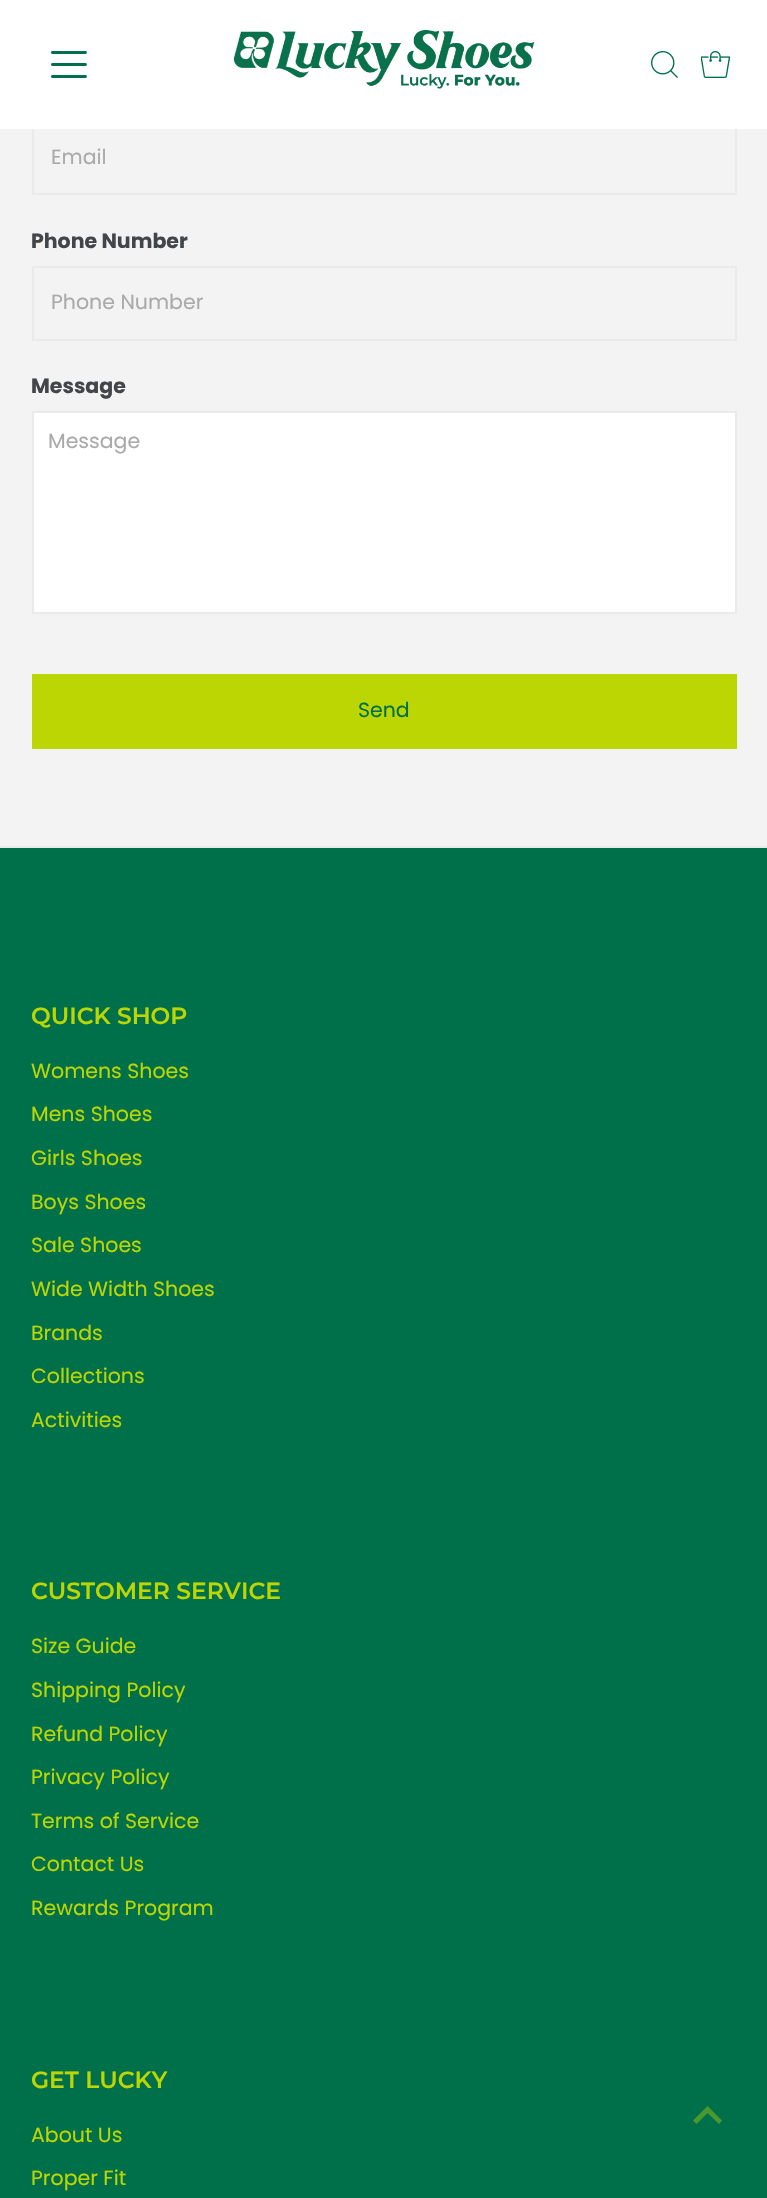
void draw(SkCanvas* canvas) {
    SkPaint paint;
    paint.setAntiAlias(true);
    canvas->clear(0xFFF3F3F3);
    paint.setStyle(SkPaint::kStroke_Style);
    paint.setStrokeWidth(2);
    paint.setColor(0xFFEAEAEA);
    canvas->drawRect(SkRect::MakeXYWH(33, 121, 703, 73), paint);
    paint.setStyle(SkPaint::kFill_Style);
    paint.setColor(0xFFFFFFFF);
    canvas->drawRect(SkRect::MakeXYWH(0, 0, 767, 129), paint);
    canvas->drawImageRect(SkImages::DeferredFromEncodedData(SkData::MakeFromFileName("img1.png")), SkRect::MakeXYWH(51, 51, 36, 27), SkSamplingOptions());
    canvas->drawImageRect(SkImages::DeferredFromEncodedData(SkData::MakeFromFileName("img2.png")), SkRect::MakeXYWH(233, 30, 302, 59), SkSamplingOptions());
    canvas->drawImageRect(SkImages::DeferredFromEncodedData(SkData::MakeFromFileName("img3.png")), SkRect::MakeXYWH(651, 51, 27, 27), SkSamplingOptions());
    canvas->drawImageRect(SkImages::DeferredFromEncodedData(SkData::MakeFromFileName("img4.png")), SkRect::MakeXYWH(701, 51, 30, 27), SkSamplingOptions());
    SkFont font1(fontMgr->matchFamilyStyle("Poppins", SkFontStyle::Normal()), 20.5f);
    font1.setSubpixel(true);
    paint.setColor(0xFFAAAAAA);
    canvas->drawString("Email", 51, 164, font1, paint);
    SkFont font2(fontMgr->matchFamilyStyle("Poppins", SkFontStyle::Bold()), 20.5f);
    font2.setSubpixel(true);
    paint.setColor(0xFF424648);
    canvas->drawString("Phone Number", 31, 248, font2, paint);
    paint.setStyle(SkPaint::kStroke_Style);
    paint.setColor(0xFFEAEAEA);
    canvas->drawRect(SkRect::MakeXYWH(33, 267, 703, 73), paint);
    paint.setStyle(SkPaint::kFill_Style);
    paint.setColor(0xFFAAAAAA);
    canvas->drawString("Phone Number", 51, 309, font1, paint);
    paint.setColor(0xFF424648);
    canvas->drawString("Message", 31, 393, font2, paint);
    paint.setColor(0xFFFFFFFF);
    canvas->drawRect(SkRect::MakeXYWH(33, 412, 703, 201), paint);
    paint.setStyle(SkPaint::kStroke_Style);
    paint.setColor(0xFFEAEAEA);
    canvas->drawRect(SkRect::MakeXYWH(33, 412, 703, 201), paint);
    paint.setStyle(SkPaint::kFill_Style);
    paint.setColor(0xFFAAAAAA);
    canvas->drawString("Message", 48, 448, font1, paint);
    paint.setColor(0xFFBCD603);
    canvas->drawRect(SkRect::MakeXYWH(32, 674, 705, 75), paint);
    paint.setColor(0xFF00704A);
    canvas->drawString("Send", 358, 717, font1, paint);
    canvas->drawRect(SkRect::MakeXYWH(0, 848, 767, 1350), paint);
    paint.setColor(0xFFEAEAEA);
    canvas->drawRect(SkRect::MakeXYWH(0, 846, 767, 2), paint);
    SkFont font3(fontMgr->matchFamilyStyle("Montserrat", SkFontStyle(600, SkFontStyle::kNormal_Width, SkFontStyle::kUpright_Slant)), 23.4f);
    font3.setSubpixel(true);
    paint.setColor(0xFFBCD603);
    canvas->drawString("QUICK SHOP", 31, 1024, font3, paint);
    canvas->drawString("Womens Shoes", 31, 1078, font1, paint);
    canvas->drawString("Mens Shoes", 31, 1121, font1, paint);
    canvas->drawString("Girls Shoes", 31, 1165, font1, paint);
    canvas->drawString("Boys Shoes", 31, 1209, font1, paint);
    canvas->drawString("Sale Shoes", 31, 1252, font1, paint);
    canvas->drawString("Wide Width Shoes", 31, 1296, font1, paint);
    canvas->drawString("Brands", 31, 1340, font1, paint);
    canvas->drawString("Collections", 31, 1383, font1, paint);
    canvas->drawString("Activities", 31, 1427, font1, paint);
    canvas->drawString("CUSTOMER SERVICE", 31, 1599, font3, paint);
    canvas->drawString("Size Guide", 31, 1653, font1, paint);
    canvas->drawString("Shipping Policy", 31, 1697, font1, paint);
    canvas->drawString("Refund Policy", 31, 1741, font1, paint);
    canvas->drawString("Privacy Policy", 31, 1784, font1, paint);
    canvas->drawString("Terms of Service", 31, 1828, font1, paint);
    canvas->drawString("Contact Us", 31, 1871, font1, paint);
    canvas->drawString("Rewards Program", 31, 1915, font1, paint);
    canvas->drawString("GET LUCKY", 31, 2088, font3, paint);
    canvas->drawString("About Us", 31, 2142, font1, paint);
    canvas->drawString("Proper Fit", 31, 2185, font1, paint);
    paint.setColor(0xFF4B992E);
    canvas->drawPath(SkPathBuilder().moveTo(707.5f, 2106).lineTo(693, 2120.5f).lineTo(696.5f, 2124).lineTo(707.5f, 2113).lineTo(719, 2124).lineTo(722, 2120.5f).close().detach(), paint);
}
